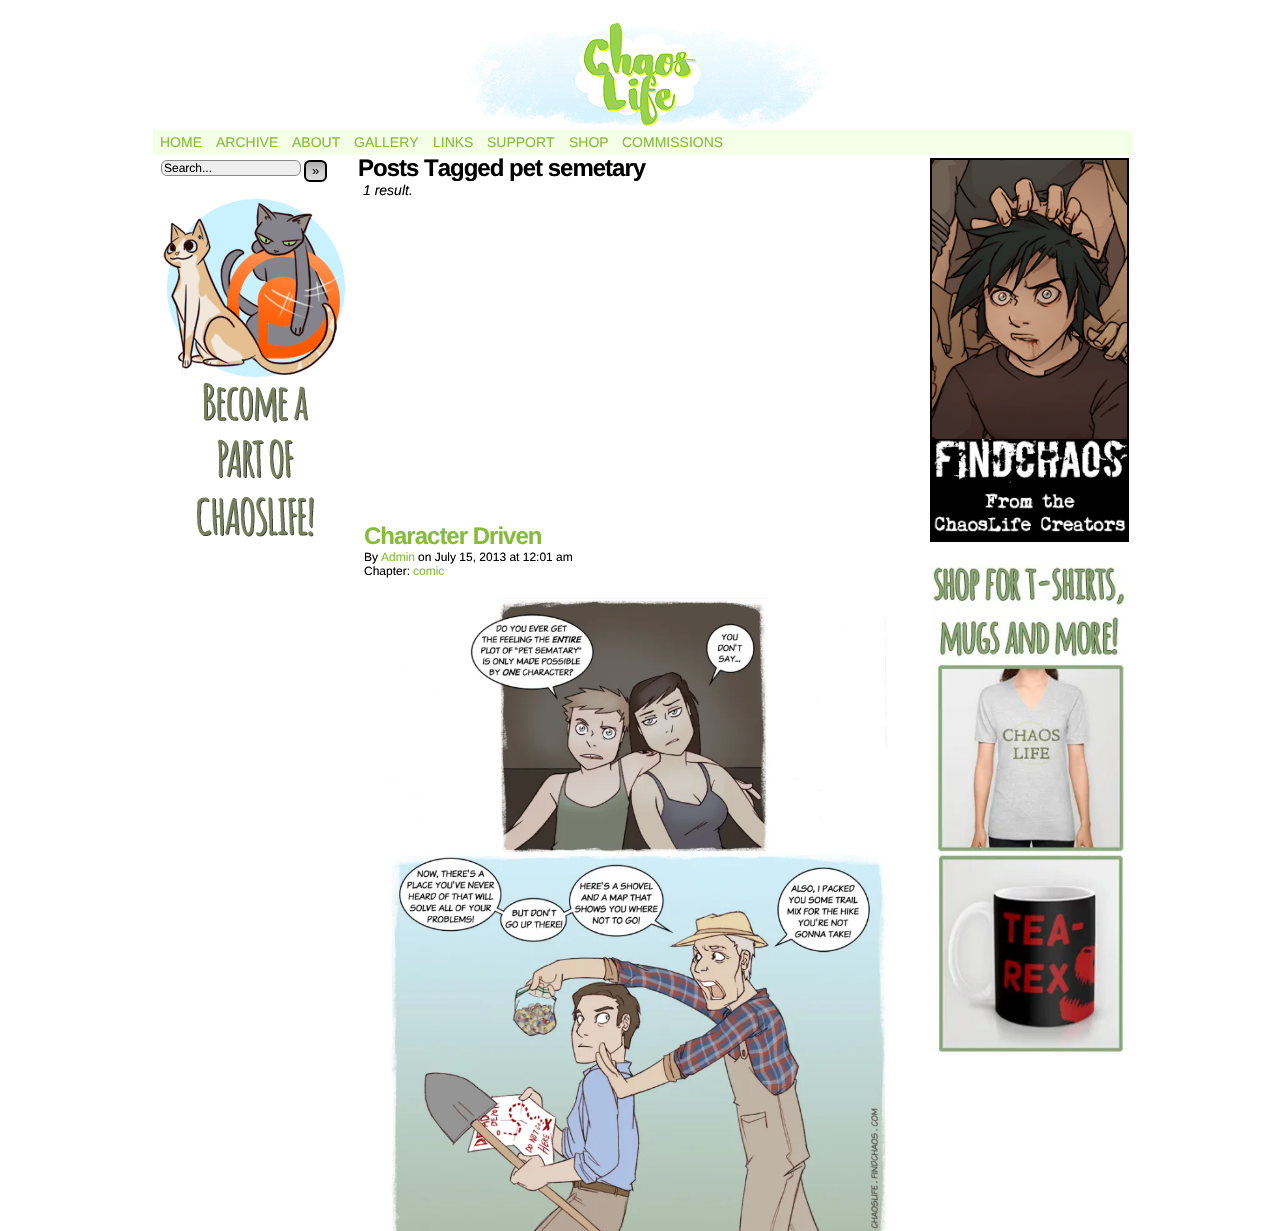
void draw(SkCanvas* canvas) {
    SkPaint paint;
    paint.setAntiAlias(true);
    auto spacedText = [&](const char* s, float x, float y, const SkFont& font, const SkPaint& ink, float letter, float word) {
        std::vector<SkGlyphID> glyphs(font.countText(s, strlen(s), SkTextEncoding::kUTF8));
        std::vector<float> xs(glyphs.size());
        font.textToGlyphs(s, strlen(s), SkTextEncoding::kUTF8, glyphs);
        font.getXPos(glyphs, xs, x);
        float extra = 0;
        for (size_t i = 0; i < glyphs.size(); i++) {
            xs[i] += extra;
            extra += letter + word * (glyphs[i] == font.unicharToGlyph(' '));
        }
        canvas->drawTextBlob(SkTextBlob::MakeFromPosHGlyphs(glyphs, xs, y, font), 0, 0, ink);
    };
    canvas->clear(0xFFFFFFFF);
    canvas->drawImageRect(SkImages::DeferredFromEncodedData(SkData::MakeFromFileName("img1.png")), SkRect::MakeXYWH(464, 22, 366, 106), SkSamplingOptions());
    paint.setColor(0xFFF5FFE5);
    canvas->drawRect(SkRect::MakeXYWH(153, 130, 980, 25), paint);
    SkFont font1(fontMgr->matchFamilyStyle("Liberation Sans", SkFontStyle::Normal()), 14);
    font1.setSubpixel(true);
    paint.setColor(0xFF86BC3A);
    canvas->drawString("HOME", 160, 147, font1, paint);
    canvas->drawString("ARCHIVE", 216, 147, font1, paint);
    canvas->drawString("ABOUT", 292, 147, font1, paint);
    canvas->drawString("GALLERY", 354, 147, font1, paint);
    canvas->drawString("LINKS", 433, 147, font1, paint);
    canvas->drawString("SUPPORT", 487, 147, font1, paint);
    canvas->drawString("SHOP", 569, 147, font1, paint);
    canvas->drawString("COMMISSIONS", 622, 147, font1, paint);
    paint.setColor(0xFFEEEEEE);
    canvas->drawRoundRect(SkRect::MakeXYWH(161.5f, 160.5f, 139, 15), 5.5f, 5.5f, paint);
    paint.setStyle(SkPaint::kStroke_Style);
    paint.setStrokeWidth(1);
    paint.setColor(0xFF888888);
    canvas->drawRoundRect(SkRect::MakeXYWH(161.5f, 160.5f, 139, 15), 5.5f, 5.5f, paint);
    SkFont font2(fontMgr->matchFamilyStyle("Liberation Sans", SkFontStyle::Normal()), 12);
    font2.setSubpixel(true);
    paint.setStyle(SkPaint::kFill_Style);
    paint.setColor(0xFF000000);
    canvas->drawString("Search...", 164, 172, font2, paint);
    canvas->save();
    canvas->clipPath(SkPathBuilder().moveTo(310, 160).lineTo(321, 160).cubicTo(324.5f, 160, 327, 162.5f, 327, 166).lineTo(327, 176).cubicTo(327, 179.5f, 324.5f, 182, 321, 182).lineTo(310, 182).cubicTo(306.5f, 182, 304, 179.5f, 304, 176).lineTo(304, 166).cubicTo(304, 162.5f, 306.5f, 160, 310, 160).close().detach(), true);
    {
        const SkColor colors[] = {0xFFAAAAAA, 0xFFCCCCCC, 0xFFDDDDDD};
        const float stops[] = {0, 0.5f, 1};
        const SkPoint ends[] = {{316, 162}, {316, 180}};
        paint.setShader(SkGradientShader::MakeLinear(ends, colors, stops, 3, SkTileMode::kClamp));
        paint.setAlpha(255);
    }
    canvas->drawRect(SkRect::MakeXYWH(304, 162, 23, 18), paint);
    canvas->restore();
    paint.setStyle(SkPaint::kStroke_Style);
    paint.setStrokeWidth(2);
    paint.setShader(nullptr);
    paint.setColor(0xFF000000);
    canvas->drawRoundRect(SkRect::MakeXYWH(305, 161, 21, 20), 5, 5, paint);
    SkFont font3(fontMgr->matchFamilyStyle("Liberation Sans", SkFontStyle::Normal()), 13);
    font3.setSubpixel(true);
    paint.setStyle(SkPaint::kFill_Style);
    canvas->drawString("»", 312, 175, font3, paint);
    canvas->drawImageRect(SkImages::DeferredFromEncodedData(SkData::MakeFromFileName("img2.png")), SkRect::MakeXYWH(163, 199, 182, 338), SkSamplingOptions());
    SkFont font4(fontMgr->matchFamilyStyle("Liberation Sans", SkFontStyle::Bold()), 24);
    font4.setSubpixel(true);
    spacedText("Posts Tagged pet semetary", 358, 176, font4, paint, -1, 0);
    SkFont font5(fontMgr->matchFamilyStyle("Liberation Sans", SkFontStyle::Italic()), 14);
    font5.setSubpixel(true);
    canvas->drawString("1 result.", 363, 195, font5, paint);
    paint.setColor(0xFF86BC3A);
    spacedText("Character Driven", 364, 544, font4, paint, -1, 0);
    paint.setColor(0xFF000000);
    canvas->drawString("By", 364, 561, font2, paint);
    paint.setColor(0xFF86BC3A);
    canvas->drawString("Admin", 381, 561, font2, paint);
    paint.setColor(0xFF000000);
    canvas->drawString("on July 15, 2013 at 12:01 am", 418, 561, font2, paint);
    canvas->drawString("Chapter:", 364, 575, font2, paint);
    paint.setColor(0xFF86BC3A);
    canvas->drawString("comic", 413, 575, font2, paint);
    canvas->drawImageRect(SkImages::DeferredFromEncodedData(SkData::MakeFromFileName("img3.png")), SkRect::MakeXYWH(390, 598, 498, 633), SkSamplingOptions());
    paint.setStyle(SkPaint::kStroke_Style);
    paint.setColor(0xFF000000);
    canvas->drawRect(SkRect::MakeXYWH(931, 159, 197, 382), paint);
    canvas->drawImageRect(SkImages::DeferredFromEncodedData(SkData::MakeFromFileName("img4.png")), SkRect::MakeXYWH(932, 160, 195, 380), SkSamplingOptions());
    canvas->drawImageRect(SkImages::DeferredFromEncodedData(SkData::MakeFromFileName("img5.png")), SkRect::MakeXYWH(932, 564, 194, 491), SkSamplingOptions());
}
